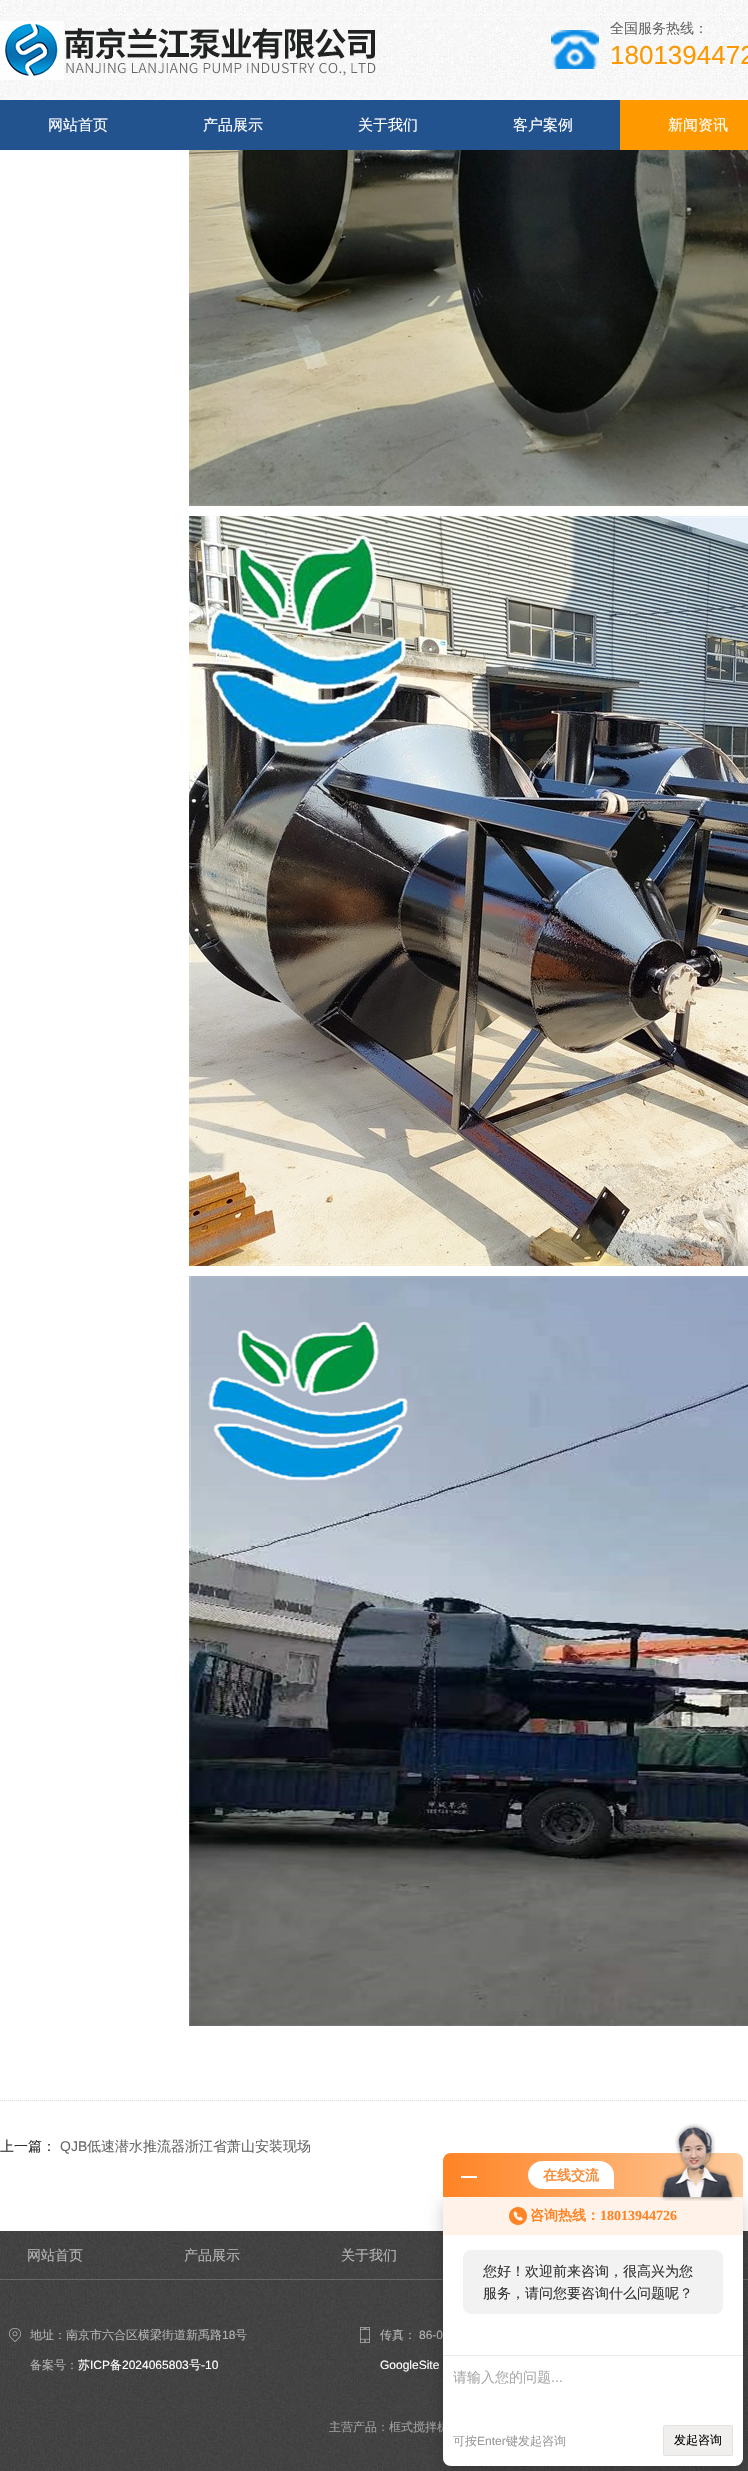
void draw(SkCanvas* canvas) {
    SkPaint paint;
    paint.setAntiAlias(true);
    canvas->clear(0xFFFFFFFF);
    canvas->drawImageRect(SkImages::DeferredFromEncodedData(SkData::MakeFromFileName("img1.png")), SkRect::MakeXYWH(0, 0, 748, 100), SkSamplingOptions());
    canvas->drawImageRect(SkImages::DeferredFromEncodedData(SkData::MakeFromFileName("img2.png")), SkRect::MakeXYWH(0, 20, 489, 60), SkSamplingOptions());
    canvas->drawImageRect(SkImages::DeferredFromEncodedData(SkData::MakeFromFileName("img3.png")), SkRect::MakeXYWH(551, 30, 48, 39), SkSamplingOptions());
    SkFont font1(fontMgr->matchFamilyStyle("WenQuanYi Zen Hei", SkFontStyle(500, SkFontStyle::kNormal_Width, SkFontStyle::kUpright_Slant)), 14);
    font1.setSubpixel(true);
    paint.setColor(0xFF666666);
    canvas->drawString("全国服务热线：", 610, 33, font1, paint);
    SkFont font2(fontMgr->matchFamilyStyle("Liberation Sans", SkFontStyle::Normal()), 26);
    font2.setSubpixel(true);
    paint.setColor(0xFFFD9900);
    canvas->drawString("1801394472", 610, 64, font2, paint);
    paint.setColor(0xFF23538F);
    canvas->drawRect(SkRect::MakeXYWH(0, 100, 620, 50), paint);
    SkFont font3(fontMgr->matchFamilyStyle("WenQuanYi Zen Hei", SkFontStyle(500, SkFontStyle::kNormal_Width, SkFontStyle::kUpright_Slant)), 15);
    font3.setSubpixel(true);
    paint.setColor(0xFFFFFFFF);
    canvas->drawString("网站首页", 48, 130, font3, paint);
    canvas->drawString("产品展示", 203, 130, font3, paint);
    canvas->drawString("关于我们", 358, 130, font3, paint);
    canvas->drawString("客户案例", 513, 130, font3, paint);
    paint.setColor(0xFFFF9900);
    canvas->drawRect(SkRect::MakeXYWH(620, 100, 128, 50), paint);
    paint.setColor(0xFFFFFFFF);
    canvas->drawString("新闻资讯", 668, 130, font3, paint);
    paint.setStyle(SkPaint::kStroke_Style);
    paint.setStrokeWidth(1);
    paint.setColor(0xFFD9D9D9);
    paint.setPathEffect(SkDashPathEffect::Make({{1, 1}}, 0));
    canvas->drawPath(SkPathBuilder().moveTo(0, 2100.5f).lineTo(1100, 2100.5f).detach(), paint);
    paint.setPathEffect(nullptr);
    canvas->drawImageRect(SkImages::DeferredFromEncodedData(SkData::MakeFromFileName("img4.png")), SkRect::MakeXYWH(189, 150, 559, 356), SkSamplingOptions());
    canvas->drawImageRect(SkImages::DeferredFromEncodedData(SkData::MakeFromFileName("img5.png")), SkRect::MakeXYWH(189, 516, 559, 750), SkSamplingOptions());
    canvas->drawImageRect(SkImages::DeferredFromEncodedData(SkData::MakeFromFileName("img6.png")), SkRect::MakeXYWH(189, 1276, 559, 750), SkSamplingOptions());
    paint.setStyle(SkPaint::kFill_Style);
    paint.setColor(0xFF333333);
    canvas->drawString("上一篇：", 0, 2151, font1, paint);
    SkFont font4(fontMgr->matchFamilyStyle("Liberation Sans", SkFontStyle::Normal()), 14);
    font4.setSubpixel(true);
    paint.setColor(0xFF666666);
    canvas->drawString("QJB", 60, 2151, font4, paint);
    canvas->drawString("低速潜水推流器浙江省萧山安装现场", 87, 2151, font1, paint);
    canvas->drawImageRect(SkImages::DeferredFromEncodedData(SkData::MakeFromFileName("img7.png")), SkRect::MakeXYWH(0, 2231, 748, 240), SkSamplingOptions());
    paint.setColor(0x33FFFFFF);
    canvas->drawRect(SkRect::MakeXYWH(0, 2279, 748, 1), paint);
    paint.setColor(0xFFB4B4B4);
    canvas->drawString("网站首页", 27, 2260, font1, paint);
    canvas->drawString("产品展示", 184, 2260, font1, paint);
    canvas->drawString("关于我们", 341, 2260, font1, paint);
    canvas->drawImageRect(SkImages::DeferredFromEncodedData(SkData::MakeFromFileName("img8.png")), SkRect::MakeXYWH(9, 2328, 12, 14), SkSamplingOptions());
    SkFont font5(fontMgr->matchFamilyStyle("WenQuanYi Zen Hei", SkFontStyle(500, SkFontStyle::kNormal_Width, SkFontStyle::kUpright_Slant)), 12);
    font5.setSubpixel(true);
    canvas->drawString("地址：南京市六合区横梁街道新禹路", 30, 2339, font5, paint);
    SkFont font6(fontMgr->matchFamilyStyle("Liberation Sans", SkFontStyle::Normal()), 12);
    font6.setSubpixel(true);
    canvas->drawString("18", 222, 2339, font6, paint);
    canvas->drawString("号", 235, 2339, font5, paint);
    canvas->drawString("备案号：", 30, 2369, font5, paint);
    paint.setColor(0xFFFFFFFF);
    canvas->drawString("苏", 78, 2369, font5, paint);
    canvas->drawString("ICP", 90, 2369, font6, paint);
    canvas->drawString("备", 110, 2369, font5, paint);
    canvas->drawString("2024065803", 122, 2369, font6, paint);
    canvas->drawString("号", 189, 2369, font5, paint);
    canvas->drawString("-10", 201, 2369, font6, paint);
    canvas->drawImageRect(SkImages::DeferredFromEncodedData(SkData::MakeFromFileName("img9.png")), SkRect::MakeXYWH(360, 2327, 10, 16), SkSamplingOptions());
    paint.setColor(0xFFB4B4B4);
    canvas->drawString("传真：", 380, 2339, font5, paint);
    canvas->drawString("86-0", 419, 2339, font6, paint);
    paint.setColor(0xFFFFFFFF);
    canvas->drawString("GoogleSite", 380, 2369, font6, paint);
    paint.setColor(0xFFA1A1A1);
    canvas->drawString("主营产品：框式搅拌机", 329, 2431, font5, paint);
    paint.setColor(0x33000000);
    paint.setMaskFilter(SkMaskFilter::MakeBlur(kNormal_SkBlurStyle, 8));
    canvas->drawRoundRect(SkRect::MakeXYWH(443, 2201, 300, 269), 8, 8, paint);
    paint.setMaskFilter(nullptr);
    {
        const SkColor colors[] = {0xFFFF8324, 0xFFFECB9C};
        const float stops[] = {0, 1};
        const SkPoint ends[] = {{443, 2175}, {743, 2175}};
        paint.setShader(SkGradientShader::MakeLinear(ends, colors, stops, 2, SkTileMode::kClamp));
        paint.setAlpha(255);
    }
    canvas->drawPath(SkPathBuilder().moveTo(451, 2153).lineTo(735, 2153).cubicTo(739.5f, 2153, 743, 2156.5f, 743, 2161).lineTo(743, 2197).lineTo(443, 2197).lineTo(443, 2161).cubicTo(443, 2156.5f, 446.5f, 2153, 451, 2153).close().detach(), paint);
    paint.setShader(nullptr);
    paint.setColor(0xFFFFFFFF);
    canvas->drawRect(SkRect::MakeXYWH(461, 2176, 16, 2), paint);
    canvas->drawPath(SkPathBuilder().moveTo(542, 2161).lineTo(600, 2161).cubicTo(607.5f, 2161, 614, 2167.5f, 614, 2175).lineTo(614, 2189).lineTo(542, 2189).cubicTo(534.5f, 2189, 528, 2182.5f, 528, 2175).cubicTo(528, 2167.5f, 534.5f, 2161, 542, 2161).close().detach(), paint);
    SkFont font7(fontMgr->matchFamilyStyle("WenQuanYi Zen Hei", SkFontStyle::Bold()), 14);
    font7.setSubpixel(true);
    paint.setColor(0xFFFB8B36);
    canvas->drawString("在线交流", 543, 2180, font7, paint);
    paint.setColor(0xFFFFFFFF);
    canvas->drawPath(SkPathBuilder().moveTo(443, 2197).lineTo(743, 2197).lineTo(743, 2458).cubicTo(743, 2462.5f, 739.5f, 2466, 735, 2466).lineTo(451, 2466).cubicTo(446.5f, 2466, 443, 2462.5f, 443, 2458).close().detach(), paint);
    paint.setColor(0xFFFFF3E9);
    canvas->drawRect(SkRect::MakeXYWH(443, 2197, 300, 38), paint);
    canvas->drawImageRect(SkImages::DeferredFromEncodedData(SkData::MakeFromFileName("img10.png")), SkRect::MakeXYWH(659, 2123, 76, 78), SkSamplingOptions());
    canvas->drawImageRect(SkImages::DeferredFromEncodedData(SkData::MakeFromFileName("img11.png")), SkRect::MakeXYWH(509, 2207, 18, 18), SkSamplingOptions());
    paint.setColor(0xFFFF8426);
    canvas->drawString("咨询热线：", 530, 2220, font7, paint);
    SkFont font8(fontMgr->matchFamilyStyle("Liberation Serif", SkFontStyle::Bold()), 14);
    font8.setSubpixel(true);
    canvas->drawString("18013944726", 600, 2220, font8, paint);
    paint.setColor(0xFFF2F2F2);
    canvas->drawRoundRect(SkRect::MakeXYWH(463, 2250, 260, 64), 8, 8, paint);
    paint.setColor(0xFF333333);
    canvas->drawString("您好！欢迎前来咨询，很高兴为您", 483, 2276, font1, paint);
    canvas->drawString("服务，请问您要咨询什么问题呢？", 483, 2298, font1, paint);
    paint.setColor(0xFFEAEAEA);
    canvas->drawRect(SkRect::MakeXYWH(443, 2355, 300, 1), paint);
    paint.setColor(0xFFAAAAAA);
    canvas->drawString("请输入您的问题", 453, 2382, font1, paint);
    canvas->drawString("...", 551, 2382, font4, paint);
    paint.setColor(0xFF999999);
    canvas->drawString("可按", 453, 2445, font5, paint);
    canvas->drawString("Enter", 477, 2445, font6, paint);
    canvas->drawString("键发起咨询", 506, 2445, font5, paint);
    paint.setColor(0xFFF0EFED);
    canvas->drawRoundRect(SkRect::MakeXYWH(663.5f, 2425.5f, 69, 30), 1.5f, 1.5f, paint);
    paint.setStyle(SkPaint::kStroke_Style);
    paint.setColor(0xFFE2E2E2);
    canvas->drawRoundRect(SkRect::MakeXYWH(663.5f, 2425.5f, 69, 30), 1.5f, 1.5f, paint);
    paint.setStyle(SkPaint::kFill_Style);
    paint.setColor(0xFF000000);
    canvas->drawString("发起咨询", 674, 2444, font5, paint);
}
